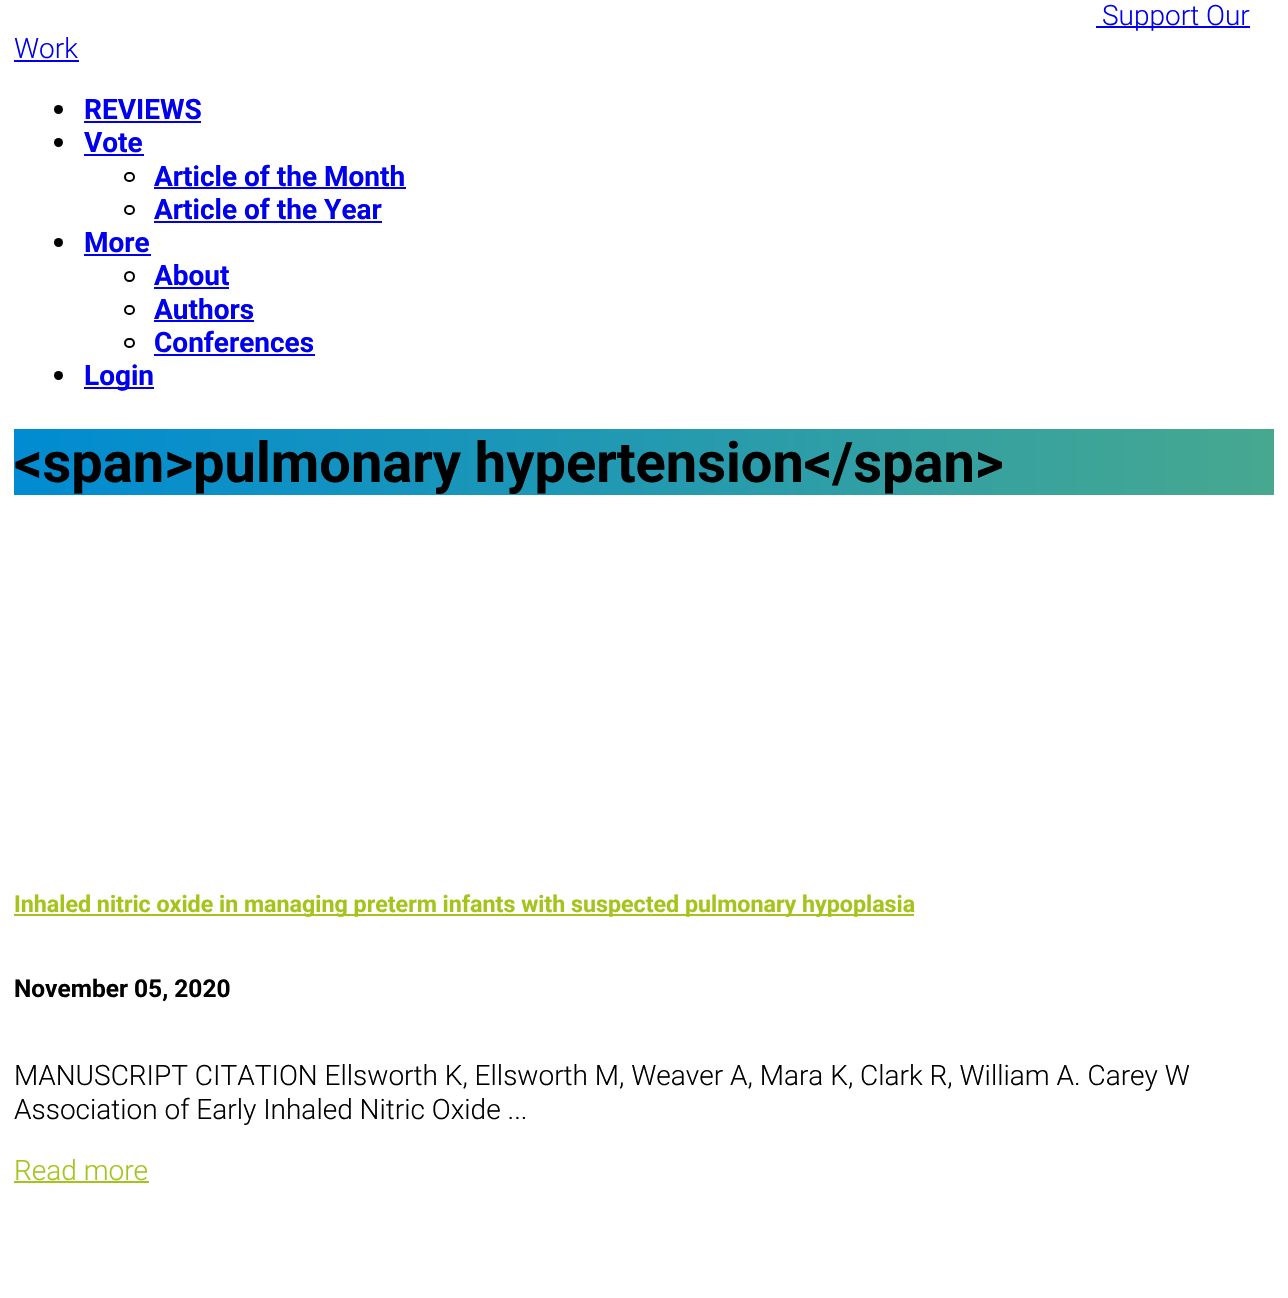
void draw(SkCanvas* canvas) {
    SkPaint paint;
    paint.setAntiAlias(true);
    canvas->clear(0xFFFFFFFF);
    paint.setColor(0xFF0000EE);
    canvas->drawRect(SkRect::MakeXYWH(1096, 26, 154, 2), paint);
    SkFont font1(fontMgr->matchFamilyStyle("Roboto", SkFontStyle(300, SkFontStyle::kNormal_Width, SkFontStyle::kUpright_Slant)), 28);
    font1.setSubpixel(true);
    canvas->drawString("Support Our", 1102, 25, font1, paint);
    canvas->drawString("Work", 14, 58, font1, paint);
    canvas->drawRect(SkRect::MakeXYWH(14, 60, 65, 2), paint);
    paint.setColor(0xFF000000);
    canvas->drawCircle(58.5f, 109.5f, 4.5f, paint);
    SkFont font2(fontMgr->matchFamilyStyle("Roboto", SkFontStyle::Bold()), 28);
    font2.setSubpixel(true);
    paint.setColor(0xFF0000EE);
    canvas->drawString("REVIEWS", 84, 119, font2, paint);
    canvas->drawRect(SkRect::MakeXYWH(84, 121, 117, 2), paint);
    paint.setColor(0xFF000000);
    canvas->drawCircle(58.5f, 142.5f, 4.5f, paint);
    paint.setColor(0xFF0000EE);
    canvas->drawString("Vote", 84, 152, font2, paint);
    canvas->drawRect(SkRect::MakeXYWH(84, 154, 60, 2), paint);
    paint.setStyle(SkPaint::kStroke_Style);
    paint.setStrokeWidth(2);
    paint.setColor(0xFF000000);
    canvas->drawRoundRect(SkRect::MakeXYWH(125, 173, 9, 8), 4, 4, paint);
    paint.setStyle(SkPaint::kFill_Style);
    paint.setColor(0xFF0000EE);
    canvas->drawString("Article of the Month", 154, 186, font2, paint);
    canvas->drawRect(SkRect::MakeXYWH(154, 187, 252, 2), paint);
    paint.setStyle(SkPaint::kStroke_Style);
    paint.setColor(0xFF000000);
    canvas->drawRoundRect(SkRect::MakeXYWH(125, 206, 9, 8), 4, 4, paint);
    paint.setStyle(SkPaint::kFill_Style);
    paint.setColor(0xFF0000EE);
    canvas->drawString("Article of the Year", 154, 219, font2, paint);
    canvas->drawRect(SkRect::MakeXYWH(154, 221, 228, 2), paint);
    paint.setColor(0xFF000000);
    canvas->drawCircle(58.5f, 242.5f, 4.5f, paint);
    paint.setColor(0xFF0000EE);
    canvas->drawString("More", 84, 252, font2, paint);
    canvas->drawRect(SkRect::MakeXYWH(84, 254, 67, 2), paint);
    paint.setStyle(SkPaint::kStroke_Style);
    paint.setColor(0xFF000000);
    canvas->drawCircle(129.5f, 276.5f, 4.5f, paint);
    paint.setStyle(SkPaint::kFill_Style);
    paint.setColor(0xFF0000EE);
    canvas->drawString("About", 154, 285, font2, paint);
    canvas->drawRect(SkRect::MakeXYWH(154, 287, 75, 2), paint);
    paint.setStyle(SkPaint::kStroke_Style);
    paint.setColor(0xFF000000);
    canvas->drawRoundRect(SkRect::MakeXYWH(125, 306, 9, 8), 4, 4, paint);
    paint.setStyle(SkPaint::kFill_Style);
    paint.setColor(0xFF0000EE);
    canvas->drawString("Authors", 154, 319, font2, paint);
    canvas->drawRect(SkRect::MakeXYWH(154, 320, 100, 2), paint);
    paint.setStyle(SkPaint::kStroke_Style);
    paint.setColor(0xFF000000);
    canvas->drawRoundRect(SkRect::MakeXYWH(125, 339, 9, 8), 4, 4, paint);
    paint.setStyle(SkPaint::kFill_Style);
    paint.setColor(0xFF0000EE);
    canvas->drawString("Conferences", 154, 352, font2, paint);
    canvas->drawRect(SkRect::MakeXYWH(154, 354, 161, 2), paint);
    paint.setColor(0xFF000000);
    canvas->drawCircle(58.5f, 375.5f, 4.5f, paint);
    paint.setColor(0xFF0000EE);
    canvas->drawRect(SkRect::MakeXYWH(84, 387, 70, 2), paint);
    canvas->drawString("Login", 84, 385, font2, paint);
    {
        const SkColor colors[] = {0xFF008BD2, 0xFF47A88F};
        const float stops[] = {0, 1};
        const SkPoint ends[] = {{14, 462}, {1274, 462}};
        paint.setShader(SkGradientShader::MakeLinear(ends, colors, stops, 2, SkTileMode::kClamp));
        paint.setAlpha(255);
    }
    canvas->drawRect(SkRect::MakeXYWH(14, 429, 1260, 66), paint);
    SkFont font3(fontMgr->matchFamilyStyle("Roboto", SkFontStyle::Bold()), 56);
    font3.setSubpixel(true);
    paint.setShader(nullptr);
    paint.setColor(0xFF000000);
    canvas->drawString("<span>pulmonary hypertension</span>", 14, 482, font3, paint);
    paint.setColor(0xFFA5C41B);
    canvas->drawRect(SkRect::MakeXYWH(14, 914, 900, 2), paint);
    SkFont font4(fontMgr->matchFamilyStyle("Roboto", SkFontStyle::Bold()), 23.25f);
    font4.setSubpixel(true);
    canvas->drawString("Inhaled nitric oxide in managing preterm infants with suspected pulmonary hypoplasia", 14, 912, font4, paint);
    SkFont font5(fontMgr->matchFamilyStyle("Roboto", SkFontStyle::Bold()), 24.5f);
    font5.setSubpixel(true);
    paint.setColor(0xFF000000);
    canvas->drawString("November 05, 2020", 14, 997, font5, paint);
    canvas->drawString("MANUSCRIPT CITATION Ellsworth K, Ellsworth M, Weaver A, Mara K, Clark R, William A. Carey W", 14, 1085, font1, paint);
    canvas->drawString("Association of Early Inhaled Nitric Oxide ...", 14, 1119, font1, paint);
    paint.setColor(0xFFA5C41B);
    canvas->drawString("Read more", 14, 1180, font1, paint);
    canvas->drawRect(SkRect::MakeXYWH(14, 1181, 135, 2), paint);
}
